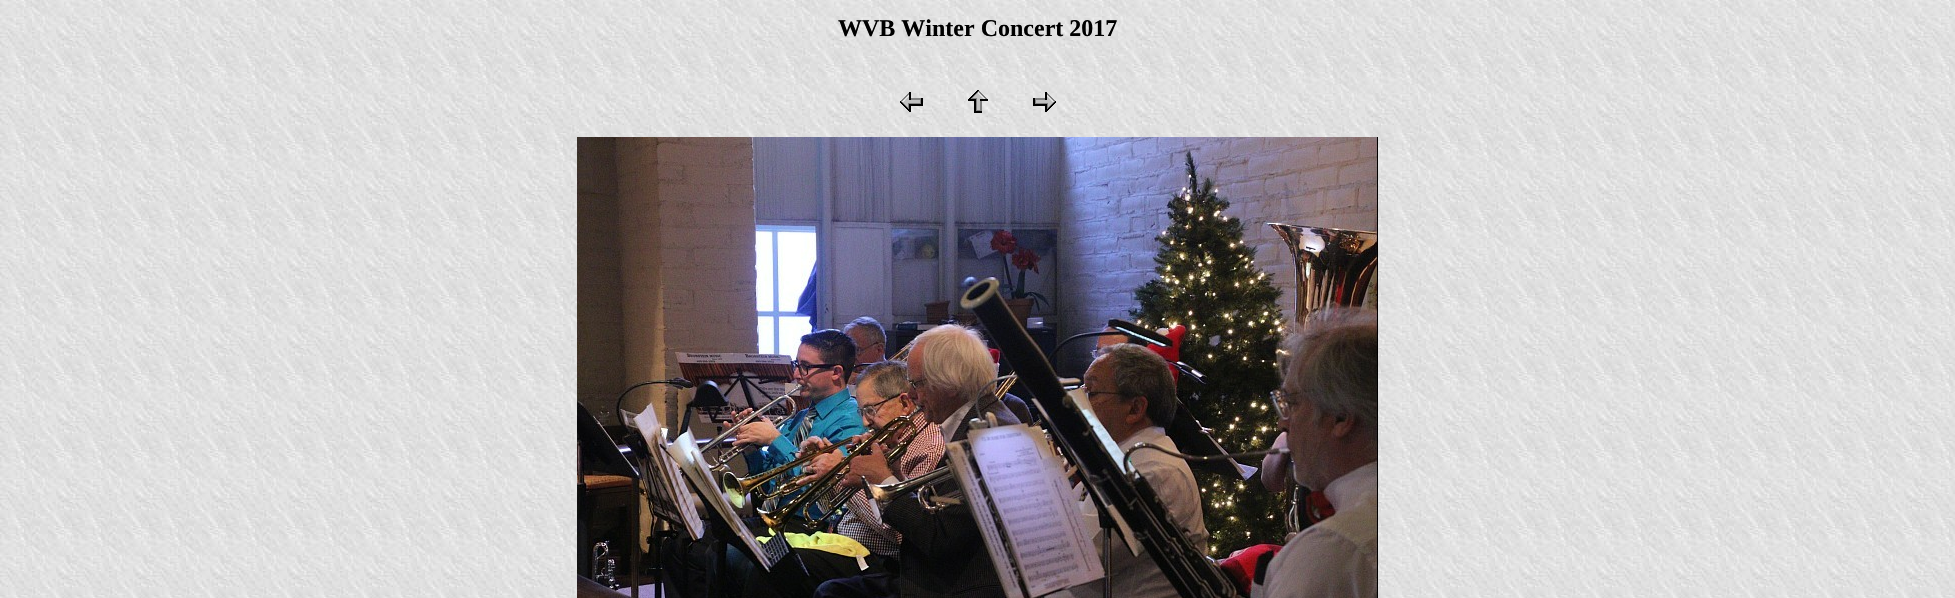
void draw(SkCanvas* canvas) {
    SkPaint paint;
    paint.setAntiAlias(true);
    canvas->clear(0xFFFFFFFF);
    canvas->drawImageRect(SkImages::DeferredFromEncodedData(SkData::MakeFromFileName("img1.png")), SkRect::MakeXYWH(0, 0, 1955, 598), SkSamplingOptions());
    SkFont font1(fontMgr->matchFamilyStyle("Liberation Serif", SkFontStyle::Bold()), 24);
    font1.setSubpixel(true);
    paint.setColor(0xFF000000);
    canvas->drawString("WVB Winter Concert 2017", 838, 36, font1, paint);
    canvas->drawImageRect(SkImages::DeferredFromEncodedData(SkData::MakeFromFileName("img2.png")), SkRect::MakeXYWH(900, 92, 23, 20), SkSamplingOptions());
    canvas->drawImageRect(SkImages::DeferredFromEncodedData(SkData::MakeFromFileName("img3.png")), SkRect::MakeXYWH(968, 90, 20, 23), SkSamplingOptions());
    canvas->drawImageRect(SkImages::DeferredFromEncodedData(SkData::MakeFromFileName("img4.png")), SkRect::MakeXYWH(1033, 92, 23, 20), SkSamplingOptions());
    canvas->drawImageRect(SkImages::DeferredFromEncodedData(SkData::MakeFromFileName("img5.png")), SkRect::MakeXYWH(577, 137, 801, 461), SkSamplingOptions());
}
